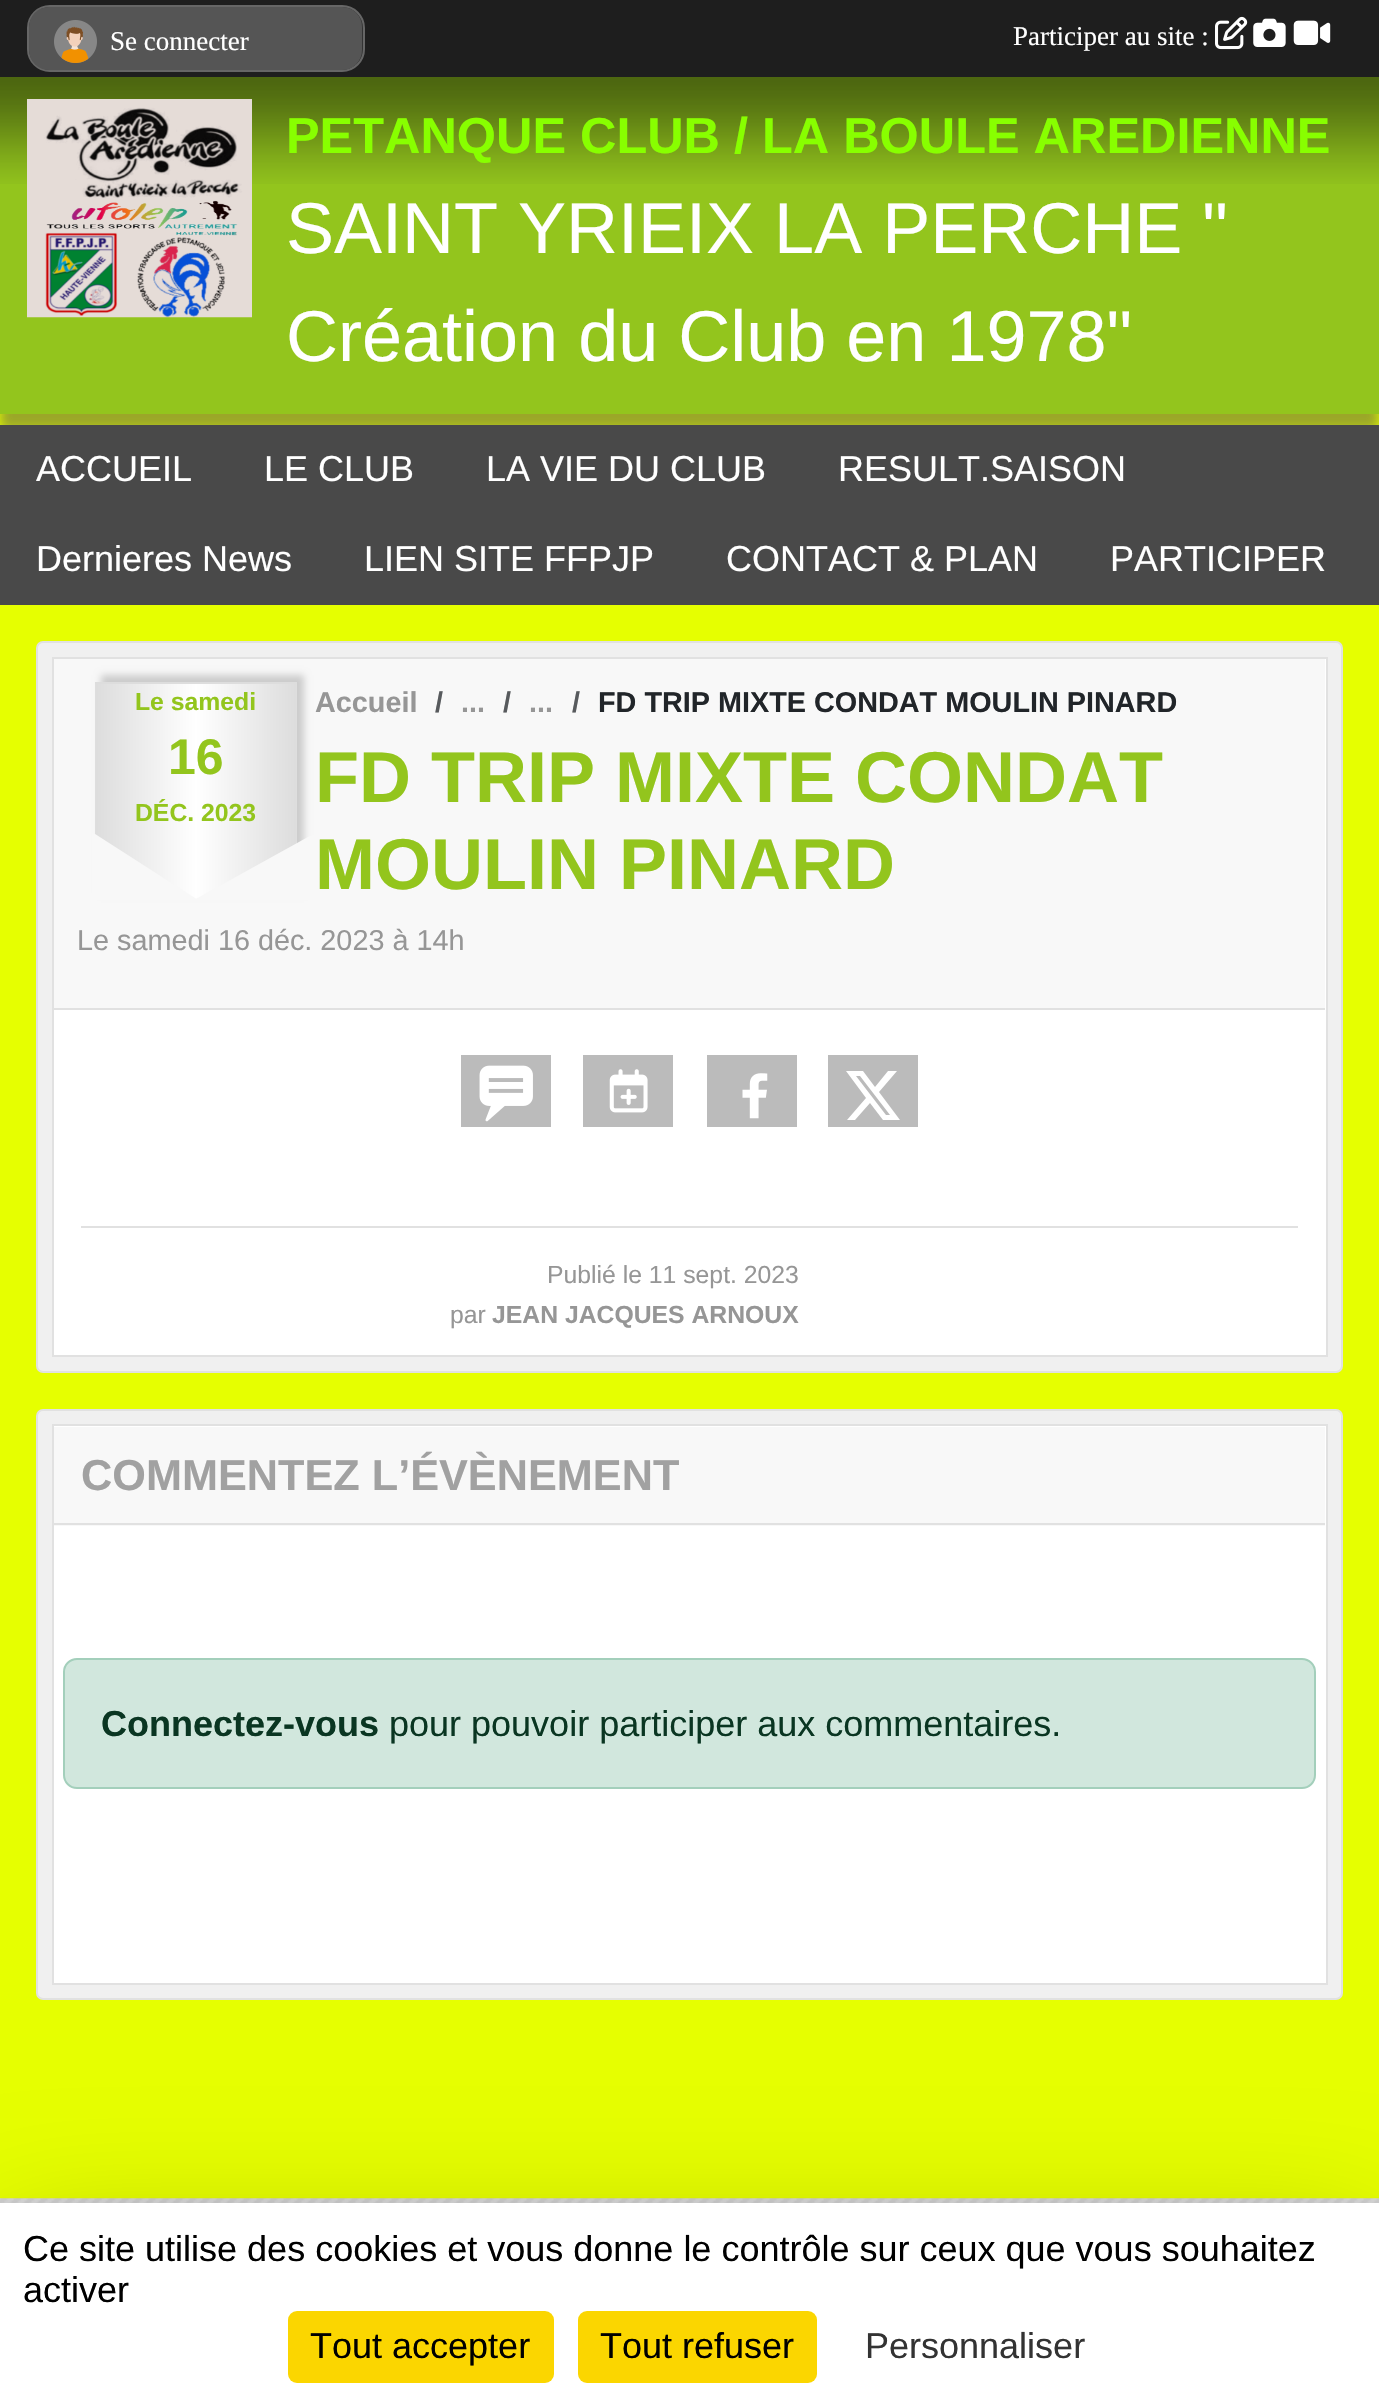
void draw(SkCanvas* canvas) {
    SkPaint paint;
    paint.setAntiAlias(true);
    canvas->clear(0xFFE6FF00);
    paint.setColor(0x80505050);
    paint.setMaskFilter(SkMaskFilter::MakeBlur(kNormal_SkBlurStyle, 5.5f));
    canvas->drawRect(SkRect::MakeXYWH(0, 92, 1379, 338), paint);
    paint.setMaskFilter(nullptr);
    paint.setColor(0xFF1E1E1E);
    canvas->drawRect(SkRect::MakeXYWH(0, 0, 1379, 77), paint);
    paint.setColor(0xFF333333);
    canvas->drawRoundRect(SkRect::MakeXYWH(28, 6, 336, 65), 22, 22, paint);
    paint.setStyle(SkPaint::kStroke_Style);
    paint.setStrokeWidth(2);
    paint.setColor(0xFF666666);
    canvas->drawRoundRect(SkRect::MakeXYWH(28, 6, 336, 65), 22, 22, paint);
    paint.setStyle(SkPaint::kFill_Style);
    paint.setColor(0xFF555555);
    canvas->drawRoundRect(SkRect::MakeXYWH(29, 7, 333, 63), 20, 20, paint);
    canvas->drawImageRect(SkImages::DeferredFromEncodedData(SkData::MakeFromFileName("img1.png")), SkRect::MakeXYWH(54, 20, 43, 43), SkSamplingOptions());
    SkFont font1(fontMgr->matchFamilyStyle("Liberation Serif", SkFontStyle::Normal()), 27);
    font1.setSubpixel(true);
    paint.setColor(0xFFFFFFFF);
    canvas->drawString("Se connecter", 110, 50, font1, paint);
    canvas->drawString("Participer au site :", 1013, 45, font1, paint);
    canvas->drawImageRect(SkImages::DeferredFromEncodedData(SkData::MakeFromFileName("img2.png")), SkRect::MakeXYWH(1215, 16, 33, 34), SkSamplingOptions());
    canvas->drawImageRect(SkImages::DeferredFromEncodedData(SkData::MakeFromFileName("img3.png")), SkRect::MakeXYWH(1253, 18, 33, 29), SkSamplingOptions());
    canvas->drawImageRect(SkImages::DeferredFromEncodedData(SkData::MakeFromFileName("img4.png")), SkRect::MakeXYWH(1293, 20, 38, 25), SkSamplingOptions());
    paint.setColor(0xFF93C51D);
    canvas->drawRect(SkRect::MakeXYWH(0, 77, 1379, 337), paint);
    canvas->drawImageRect(SkImages::DeferredFromEncodedData(SkData::MakeFromFileName("img5.png")), SkRect::MakeXYWH(0, 77, 1379, 107), SkSamplingOptions());
    canvas->drawImageRect(SkImages::DeferredFromEncodedData(SkData::MakeFromFileName("img6.png")), SkRect::MakeXYWH(27, 99, 225, 219), SkSamplingOptions());
    SkFont font2(fontMgr->matchFamilyStyle("Liberation Sans", SkFontStyle::Bold()), 50.4f);
    font2.setSubpixel(true);
    paint.setColor(0xFF88FF00);
    canvas->drawString("PETANQUE CLUB / LA BOULE AREDIENNE", 286, 153, font2, paint);
    SkFont font3(fontMgr->matchFamilyStyle("Liberation Sans", SkFontStyle::Normal()), 72);
    font3.setSubpixel(true);
    paint.setColor(0xFFFFFFFF);
    canvas->drawString("SAINT YRIEIX LA PERCHE \"", 286, 253, font3, paint);
    canvas->drawString("Création du Club en 1978\"", 286, 361, font3, paint);
    paint.setColor(0xFF494949);
    canvas->drawRect(SkRect::MakeXYWH(0, 425, 1379, 180), paint);
    SkFont font4(fontMgr->matchFamilyStyle("Liberation Sans", SkFontStyle::Normal()), 36);
    font4.setSubpixel(true);
    paint.setColor(0xFFFFFFFF);
    canvas->drawString("ACCUEIL", 36, 481, font4, paint);
    canvas->drawString("LE CLUB", 264, 481, font4, paint);
    canvas->drawString("LA VIE DU CLUB", 486, 481, font4, paint);
    canvas->drawString("RESULT.SAISON", 838, 481, font4, paint);
    canvas->drawString("Dernieres News", 36, 571, font4, paint);
    canvas->drawString("LIEN SITE FFPJP", 364, 571, font4, paint);
    canvas->drawString("CONTACT & PLAN", 726, 571, font4, paint);
    canvas->drawString("PARTICIPER", 1110, 571, font4, paint);
    paint.setColor(0xFFF0F0F0);
    canvas->drawRoundRect(SkRect::MakeXYWH(37, 642, 1305, 730), 6, 6, paint);
    paint.setStyle(SkPaint::kStroke_Style);
    paint.setColor(0xFFE1E1E1);
    canvas->drawRoundRect(SkRect::MakeXYWH(37, 642, 1305, 730), 6, 6, paint);
    paint.setStyle(SkPaint::kFill_Style);
    paint.setColor(0xFFFFFFFF);
    canvas->drawRect(SkRect::MakeXYWH(53, 658, 1274, 698), paint);
    paint.setStyle(SkPaint::kStroke_Style);
    paint.setColor(0xFFE1E1E1);
    canvas->drawRect(SkRect::MakeXYWH(53, 658, 1274, 698), paint);
    paint.setStyle(SkPaint::kFill_Style);
    paint.setColor(0xFFF8F8F8);
    canvas->drawRect(SkRect::MakeXYWH(54, 659, 1271, 349), paint);
    paint.setColor(0xFFE1E1E1);
    canvas->drawRect(SkRect::MakeXYWH(54, 1008, 1271, 2), paint);
    paint.setColor(0xFFCCCCCC);
    paint.setMaskFilter(SkMaskFilter::MakeBlur(kNormal_SkBlurStyle, 3.5f));
    canvas->drawRect(SkRect::MakeXYWH(101, 675, 203, 218), paint);
    paint.setMaskFilter(nullptr);
    {
        const SkColor colors[] = {0xFFDDDDDD, 0xFFFFFFFF, 0xFFDDDDDD};
        const float stops[] = {0, 0.5f, 1};
        const SkPoint ends[] = {{-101, 792}, {97, 792}};
        paint.setShader(SkGradientShader::MakeLinear(ends, colors, stops, 3, SkTileMode::kClamp));
        paint.setAlpha(255);
    }
    canvas->drawRect(SkRect::MakeXYWH(95, 682, 2, 154), paint);
    {
        const SkColor colors[] = {0xFFDDDDDD, 0xFFFFFFFF, 0xFFDDDDDD};
        const float stops[] = {0, 0.5f, 1};
        const SkPoint ends[] = {{97, 792}, {295, 792}};
        paint.setShader(SkGradientShader::MakeLinear(ends, colors, stops, 3, SkTileMode::kClamp));
        paint.setAlpha(255);
    }
    canvas->drawRect(SkRect::MakeXYWH(97, 684, 198, 215), paint);
    {
        const SkColor colors[] = {0xFFDDDDDD, 0xFFFFFFFF, 0xFFDDDDDD};
        const float stops[] = {0, 0.5f, 1};
        const SkPoint ends[] = {{295, 792}, {493, 792}};
        paint.setShader(SkGradientShader::MakeLinear(ends, colors, stops, 3, SkTileMode::kClamp));
        paint.setAlpha(255);
    }
    canvas->drawRect(SkRect::MakeXYWH(295, 682, 2, 163), paint);
    paint.setShader(nullptr);
    paint.setColor(0xFFDDDDDD);
    canvas->drawRect(SkRect::MakeXYWH(95, 682, 202, 2), paint);
    SkFont font5(fontMgr->matchFamilyStyle("Liberation Sans", SkFontStyle::Bold()), 24.75f);
    font5.setSubpixel(true);
    paint.setColor(0xFF93C51D);
    canvas->drawString("Le samedi", 135, 710, font5, paint);
    SkFont font6(fontMgr->matchFamilyStyle("Liberation Sans", SkFontStyle::Bold()), 50);
    font6.setSubpixel(true);
    canvas->drawString("16", 168, 774, font6, paint);
    canvas->drawString("DÉC. 2023", 135, 821, font5, paint);
    paint.setColor(0xFFF8F8F8);
    canvas->drawPath(SkPathBuilder().moveTo(92, 900).lineTo(92, 832).lineTo(198, 900).close().detach(), paint);
    canvas->drawPath(SkPathBuilder().moveTo(317, 832).lineTo(317, 900).lineTo(194, 900).close().detach(), paint);
    SkFont font7(fontMgr->matchFamilyStyle("Liberation Sans", SkFontStyle::Bold()), 28.8f);
    font7.setSubpixel(true);
    paint.setColor(0xFF969696);
    canvas->drawString("Accueil", 315, 712, font7, paint);
    paint.setColor(0xFF575A5D);
    canvas->drawString("/", 435, 712, font7, paint);
    paint.setColor(0xFF969696);
    canvas->drawString("...", 461, 712, font7, paint);
    paint.setColor(0xFF575A5D);
    canvas->drawString("/", 503, 712, font7, paint);
    paint.setColor(0xFF969696);
    canvas->drawString("...", 529, 712, font7, paint);
    paint.setColor(0xFF575A5D);
    canvas->drawString("/", 572, 712, font7, paint);
    paint.setColor(0xFF212529);
    canvas->drawString("FD TRIP MIXTE CONDAT MOULIN PINARD", 598, 712, font7, paint);
    SkFont font8(fontMgr->matchFamilyStyle("Liberation Sans", SkFontStyle::Bold()), 72);
    font8.setSubpixel(true);
    paint.setColor(0xFF93C51D);
    canvas->drawString("FD TRIP MIXTE CONDAT", 315, 802, font8, paint);
    canvas->drawString("MOULIN PINARD", 315, 889, font8, paint);
    SkFont font9(fontMgr->matchFamilyStyle("Liberation Sans", SkFontStyle::Normal()), 28.8f);
    font9.setSubpixel(true);
    paint.setColor(0xFF969696);
    canvas->drawString("Le samedi 16 déc. 2023 à 14h", 77, 950, font9, paint);
    paint.setColor(0xFFBBBBBB);
    canvas->drawRect(SkRect::MakeXYWH(461, 1055, 90, 72), paint);
    canvas->drawImageRect(SkImages::DeferredFromEncodedData(SkData::MakeFromFileName("img7.png")), SkRect::MakeXYWH(479, 1065, 54, 57), SkSamplingOptions());
    canvas->drawRect(SkRect::MakeXYWH(583, 1055, 90, 72), paint);
    canvas->drawImageRect(SkImages::DeferredFromEncodedData(SkData::MakeFromFileName("img8.png")), SkRect::MakeXYWH(609, 1069, 39, 44), SkSamplingOptions());
    canvas->drawRect(SkRect::MakeXYWH(707, 1055, 90, 72), paint);
    canvas->drawImageRect(SkImages::DeferredFromEncodedData(SkData::MakeFromFileName("img9.png")), SkRect::MakeXYWH(742, 1073, 26, 46), SkSamplingOptions());
    canvas->drawRect(SkRect::MakeXYWH(828, 1055, 90, 72), paint);
    paint.setColor(0xFFFFFFFF);
    canvas->drawPath(SkPathBuilder().moveTo(888, 1071).lineTo(897, 1071).lineTo(879, 1092).lineTo(900, 1120).lineTo(883, 1120).lineTo(870, 1103).lineTo(855, 1120).lineTo(847, 1120).lineTo(866, 1098).lineTo(846, 1071).lineTo(863, 1071).lineTo(875, 1087).close().moveTo(886, 1115).lineTo(890, 1115).lineTo(860, 1076).lineTo(856, 1076).close().detach(), paint);
    paint.setColor(0xFFE1E1E1);
    canvas->drawRect(SkRect::MakeXYWH(81, 1226, 1217, 2), paint);
    SkFont font10(fontMgr->matchFamilyStyle("Liberation Sans", SkFontStyle::Normal()), 24.75f);
    font10.setSubpixel(true);
    paint.setColor(0xFF969696);
    canvas->drawString("Publié le 11 sept. 2023", 547, 1283, font10, paint);
    canvas->drawString("par", 450, 1323, font10, paint);
    canvas->drawString("JEAN JACQUES ARNOUX", 492, 1323, font5, paint);
    paint.setColor(0xFFF0F0F0);
    canvas->drawRoundRect(SkRect::MakeXYWH(37, 1410, 1305, 589), 6, 6, paint);
    paint.setStyle(SkPaint::kStroke_Style);
    paint.setColor(0xFFE1E1E1);
    canvas->drawRoundRect(SkRect::MakeXYWH(37, 1410, 1305, 589), 6, 6, paint);
    paint.setStyle(SkPaint::kFill_Style);
    paint.setColor(0xFFFFFFFF);
    canvas->drawRect(SkRect::MakeXYWH(53, 1425, 1274, 559), paint);
    paint.setStyle(SkPaint::kStroke_Style);
    paint.setColor(0xFFE1E1E1);
    canvas->drawRect(SkRect::MakeXYWH(53, 1425, 1274, 559), paint);
    paint.setStyle(SkPaint::kFill_Style);
    paint.setColor(0xFFF8F8F8);
    canvas->drawRect(SkRect::MakeXYWH(54, 1427, 1271, 99), paint);
    paint.setColor(0xFFE1E1E1);
    canvas->drawRect(SkRect::MakeXYWH(54, 1523, 1271, 2), paint);
    SkFont font11(fontMgr->matchFamilyStyle("Liberation Sans", SkFontStyle::Bold()), 43.25f);
    font11.setSubpixel(true);
    paint.setColor(0xFFA1A1A1);
    canvas->drawString("COMMENTEZ L’ÉVÈNEMENT", 81, 1490, font11, paint);
    paint.setColor(0xFFD1E7DD);
    canvas->drawRoundRect(SkRect::MakeXYWH(64, 1659, 1251, 129), 13, 13, paint);
    paint.setStyle(SkPaint::kStroke_Style);
    paint.setColor(0xFFA3CFBB);
    canvas->drawRoundRect(SkRect::MakeXYWH(64, 1659, 1251, 129), 13, 13, paint);
    SkFont font12(fontMgr->matchFamilyStyle("Liberation Sans", SkFontStyle::Bold()), 36);
    font12.setSubpixel(true);
    paint.setStyle(SkPaint::kFill_Style);
    paint.setColor(0xFF0A3622);
    canvas->drawString("Connectez-vous", 101, 1736, font12, paint);
    canvas->drawString("pour pouvoir participer aux commentaires.", 389, 1736, font4, paint);
    canvas->drawImageRect(SkImages::DeferredFromEncodedData(SkData::MakeFromFileName("img10.png")), SkRect::MakeXYWH(0, 2198, 1379, 5), SkSamplingOptions());
    paint.setColor(0x40000000);
    paint.setMaskFilter(SkMaskFilter::MakeBlur(kNormal_SkBlurStyle, 67.5f));
    canvas->drawRect(SkRect::MakeXYWH(0, 2248, 1379, 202), paint);
    paint.setMaskFilter(nullptr);
    paint.setColor(0xFFFFFFFF);
    canvas->drawRect(SkRect::MakeXYWH(0, 2203, 1379, 201), paint);
    paint.setColor(0xFF000000);
    canvas->drawString("Ce site utilise des cookies et vous donne le contrôle sur ceux que vous souhaitez", 23, 2261, font4, paint);
    canvas->drawString("activer", 23, 2302, font4, paint);
    paint.setColor(0xFFFBD600);
    canvas->drawRoundRect(SkRect::MakeXYWH(288, 2311, 266, 72), 9, 9, paint);
    paint.setColor(0xFF000000);
    canvas->drawString("Tout accepter", 310, 2358, font4, paint);
    paint.setColor(0xFFFBD600);
    canvas->drawRoundRect(SkRect::MakeXYWH(578, 2311, 239, 72), 9, 9, paint);
    paint.setColor(0xFF000000);
    canvas->drawString("Tout refuser", 600, 2358, font4, paint);
    paint.setColor(0xFF333333);
    canvas->drawString("Personnaliser", 865, 2358, font4, paint);
}
